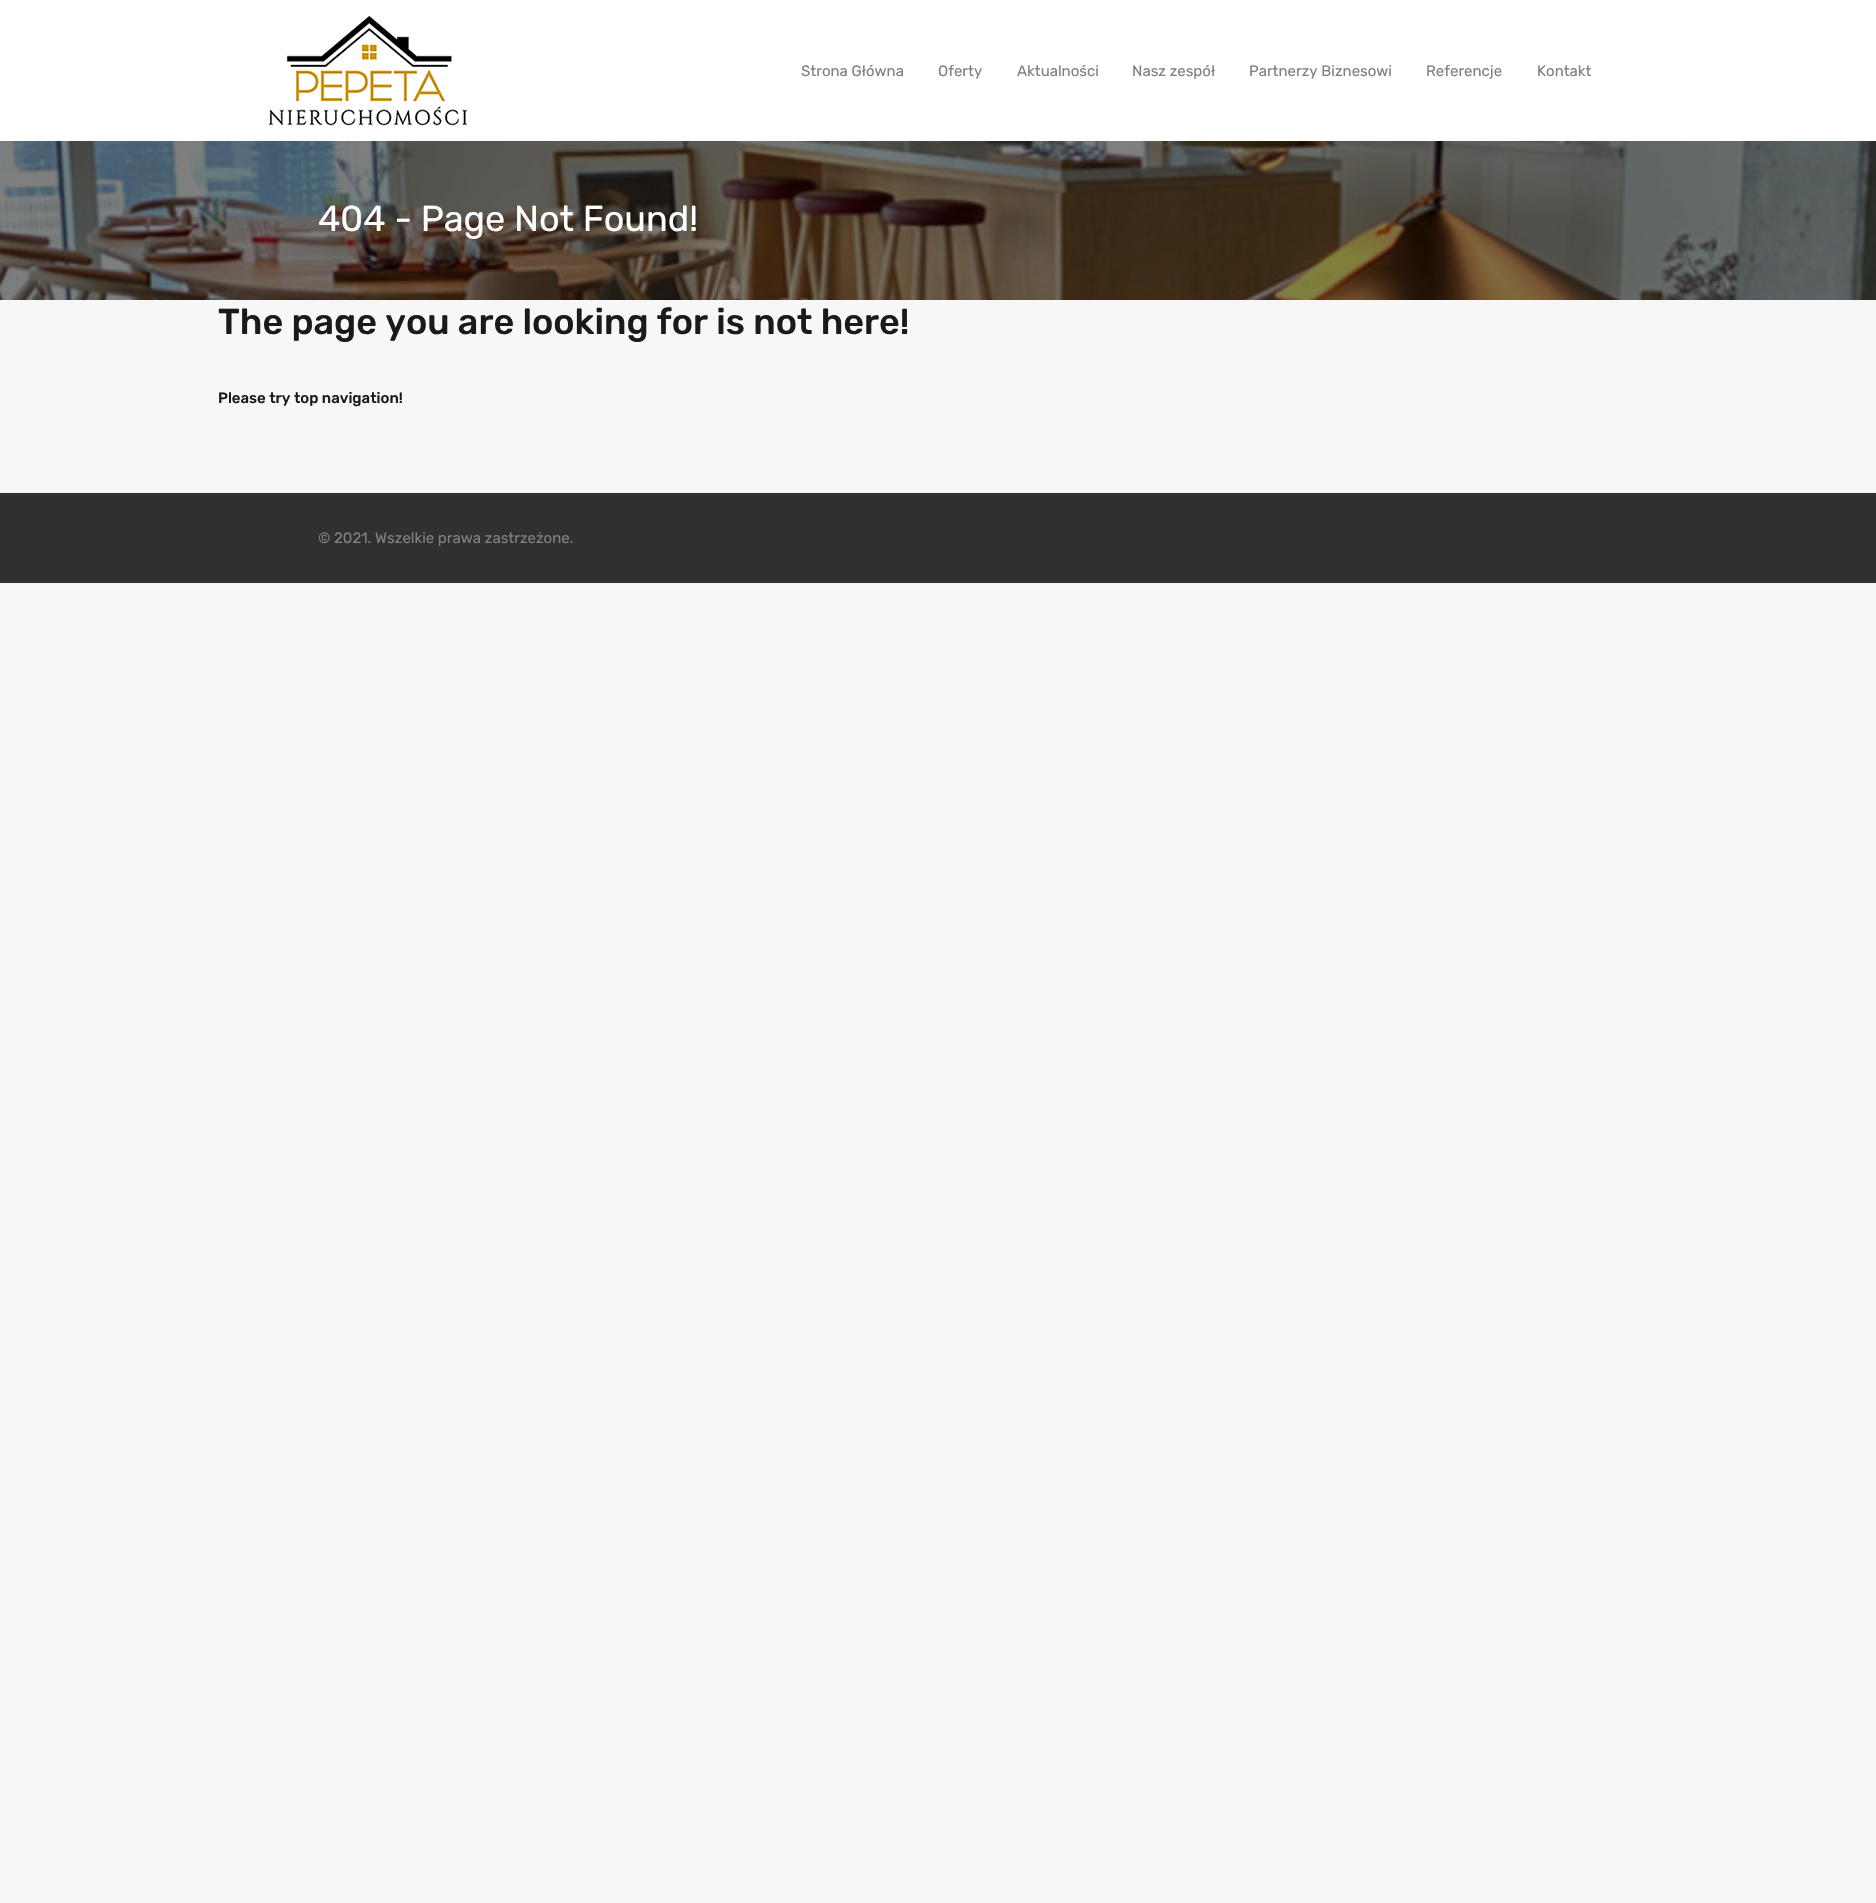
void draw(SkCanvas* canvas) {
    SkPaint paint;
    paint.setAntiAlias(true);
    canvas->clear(0xFFF7F7F7);
    paint.setColor(0xFFFFFFFF);
    canvas->drawRect(SkRect::MakeXYWH(0, 0, 1876, 141), paint);
    canvas->drawImageRect(SkImages::DeferredFromEncodedData(SkData::MakeFromFileName("img1.png")), SkRect::MakeXYWH(268, 15, 200, 111), SkSamplingOptions());
    SkFont font1(fontMgr->matchFamilyStyle("Rubik", SkFontStyle::Normal()), 15);
    font1.setSubpixel(true);
    paint.setColor(0xFF808080);
    canvas->drawString("Strona Główna", 801, 76, font1, paint);
    canvas->drawString("Oferty", 938, 76, font1, paint);
    canvas->drawString("Aktualności", 1017, 76, font1, paint);
    canvas->drawString("Nasz zespół", 1132, 76, font1, paint);
    canvas->drawString("Partnerzy Biznesowi", 1249, 76, font1, paint);
    canvas->drawString("Referencje", 1426, 76, font1, paint);
    canvas->drawString("Kontakt", 1537, 76, font1, paint);
    canvas->drawImageRect(SkImages::DeferredFromEncodedData(SkData::MakeFromFileName("img2.png")), SkRect::MakeXYWH(0, 141, 1876, 159), SkSamplingOptions());
    SkFont font2(fontMgr->matchFamilyStyle("Rubik", SkFontStyle::Normal()), 36);
    font2.setSubpixel(true);
    paint.setColor(0xFFFFFFFF);
    canvas->drawString("404 - Page Not Found!", 318, 231, font2, paint);
    SkFont font3(fontMgr->matchFamilyStyle("Rubik", SkFontStyle(500, SkFontStyle::kNormal_Width, SkFontStyle::kUpright_Slant)), 36);
    font3.setSubpixel(true);
    paint.setColor(0xFF1A1A1A);
    canvas->drawString("The page you are looking for is not here!", 218, 334, font3, paint);
    SkFont font4(fontMgr->matchFamilyStyle("Rubik", SkFontStyle(500, SkFontStyle::kNormal_Width, SkFontStyle::kUpright_Slant)), 15);
    font4.setSubpixel(true);
    canvas->drawString("Please try top navigation!", 218, 403, font4, paint);
    paint.setColor(0xFF303030);
    canvas->drawRect(SkRect::MakeXYWH(0, 493, 1876, 90), paint);
    paint.setColor(0xFF808080);
    canvas->drawString("© 2021. Wszelkie prawa zastrzeżone.", 318, 543, font1, paint);
}
